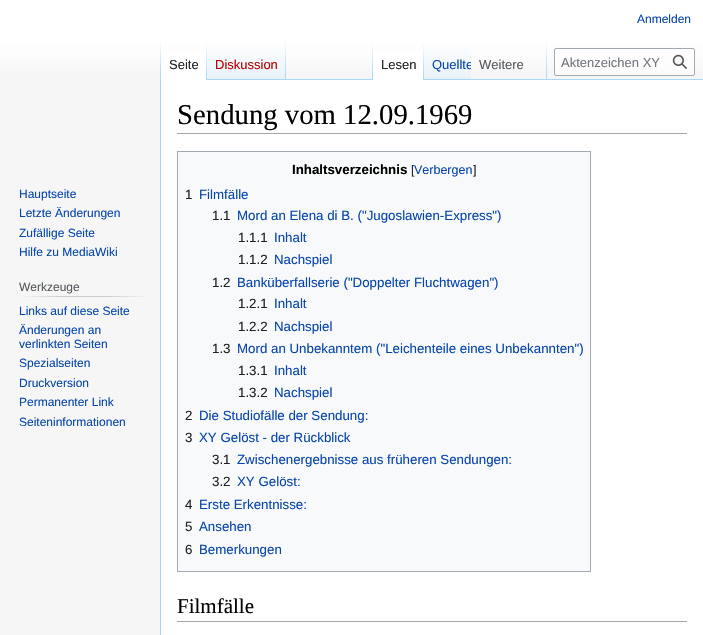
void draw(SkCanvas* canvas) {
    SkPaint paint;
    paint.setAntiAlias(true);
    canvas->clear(0xFFF6F6F6);
    {
        const SkColor colors[] = {0xFFFFFFFF, 0xFFF6F6F6};
        const float stops[] = {0.5f, 1};
        const SkPoint ends[] = {{352, 0}, {352, 80}};
        paint.setShader(SkGradientShader::MakeLinear(ends, colors, stops, 2, SkTileMode::kClamp));
        paint.setAlpha(255);
    }
    canvas->drawRect(SkRect::MakeXYWH(0, 0, 703, 69), paint);
    SkFont font1(fontMgr->matchFamilyStyle("Liberation Sans", SkFontStyle::Normal()), 12);
    font1.setSubpixel(true);
    paint.setShader(nullptr);
    paint.setColor(0xFF0645AD);
    canvas->drawString("Anmelden", 637, 23, font1, paint);
    paint.setColor(0xFFA7D7F9);
    canvas->drawRect(SkRect::MakeXYWH(160, 79, 1, 556), paint);
    {
        const SkColor colors[] = {0x00A7D7F9, 0xFFA7D7F9};
        const float stops[] = {0, 1};
        const SkPoint ends[] = {{161, 40}, {161, 80}};
        paint.setShader(SkGradientShader::MakeLinear(ends, colors, stops, 2, SkTileMode::kClamp));
        paint.setAlpha(255);
    }
    canvas->drawRect(SkRect::MakeXYWH(160, 40, 1, 40), paint);
    paint.setShader(nullptr);
    paint.setColor(0xFFFFFFFF);
    canvas->drawRect(SkRect::MakeXYWH(161, 51, 45, 29), paint);
    {
        const SkColor colors[] = {0xFFFFFFFF, 0xFFA7D7F9};
        const float stops[] = {0, 1};
        const SkPoint ends[] = {{207, 40}, {207, 80}};
        paint.setShader(SkGradientShader::MakeLinear(ends, colors, stops, 2, SkTileMode::kClamp));
        paint.setAlpha(255);
    }
    canvas->drawRect(SkRect::MakeXYWH(206, 40, 1, 40), paint);
    SkFont font2(fontMgr->matchFamilyStyle("Liberation Sans", SkFontStyle::Normal()), 13);
    font2.setSubpixel(true);
    paint.setShader(nullptr);
    paint.setColor(0xFF202122);
    canvas->drawString("Seite", 169, 69, font2, paint);
    {
        const SkColor colors[] = {0xFF77C1F6, 0xFFE8F2F8, 0xFFFFFFFF};
        const float stops[] = {0, 0.03f, 1};
        const SkPoint ends[] = {{247, 80}, {247, 40}};
        paint.setShader(SkGradientShader::MakeLinear(ends, colors, stops, 3, SkTileMode::kClamp));
        paint.setAlpha(255);
    }
    canvas->drawRect(SkRect::MakeXYWH(207, 46, 79, 34), paint);
    {
        const SkColor colors[] = {0x00A7D7F9, 0xFFA7D7F9};
        const float stops[] = {0, 1};
        const SkPoint ends[] = {{286, 40}, {286, 80}};
        paint.setShader(SkGradientShader::MakeLinear(ends, colors, stops, 2, SkTileMode::kClamp));
        paint.setAlpha(255);
    }
    canvas->drawRect(SkRect::MakeXYWH(285, 40, 1, 40), paint);
    paint.setShader(nullptr);
    paint.setColor(0xFFBA0000);
    canvas->drawString("Diskussion", 215, 69, font2, paint);
    paint.setColor(0xFFA7D7F9);
    canvas->drawRect(SkRect::MakeXYWH(286, 79, 417, 1), paint);
    {
        const SkColor colors[] = {0x00A7D7F9, 0xFFA7D7F9};
        const float stops[] = {0, 1};
        const SkPoint ends[] = {{373, 40}, {373, 80}};
        paint.setShader(SkGradientShader::MakeLinear(ends, colors, stops, 2, SkTileMode::kClamp));
        paint.setAlpha(255);
    }
    canvas->drawRect(SkRect::MakeXYWH(372, 40, 1, 40), paint);
    paint.setShader(nullptr);
    paint.setColor(0xFFFFFFFF);
    canvas->drawRect(SkRect::MakeXYWH(373, 51, 50, 29), paint);
    {
        const SkColor colors[] = {0xFFFFFFFF, 0xFFA7D7F9};
        const float stops[] = {0, 1};
        const SkPoint ends[] = {{424, 40}, {424, 80}};
        paint.setShader(SkGradientShader::MakeLinear(ends, colors, stops, 2, SkTileMode::kClamp));
        paint.setAlpha(255);
    }
    canvas->drawRect(SkRect::MakeXYWH(423, 40, 1, 40), paint);
    paint.setShader(nullptr);
    paint.setColor(0xFF202122);
    canvas->drawString("Lesen", 381, 69, font2, paint);
    {
        const SkColor colors[] = {0xFF77C1F6, 0xFFE8F2F8, 0xFFFFFFFF};
        const float stops[] = {0, 0.03f, 1};
        const SkPoint ends[] = {{448, 80}, {448, 40}};
        paint.setShader(SkGradientShader::MakeLinear(ends, colors, stops, 3, SkTileMode::kClamp));
        paint.setAlpha(255);
    }
    canvas->drawRect(SkRect::MakeXYWH(424, 46, 47, 33), paint);
    canvas->save();
    canvas->clipRect(SkRect::MakeXYWH(424, 40, 47, 40));
    paint.setShader(nullptr);
    paint.setColor(0xFF0645AD);
    canvas->drawString("Quellte", 432, 69, font2, paint);
    canvas->restore();
    {
        const SkColor colors[] = {0x00A7D7F9, 0xFFA7D7F9};
        const float stops[] = {0, 1};
        const SkPoint ends[] = {{547, 40}, {547, 80}};
        paint.setShader(SkGradientShader::MakeLinear(ends, colors, stops, 2, SkTileMode::kClamp));
        paint.setAlpha(255);
    }
    canvas->drawRect(SkRect::MakeXYWH(546, 40, 1, 40), paint);
    paint.setShader(nullptr);
    paint.setColor(0xFF54595D);
    canvas->drawString("Weitere", 479, 69, font2, paint);
    paint.setColor(0x80FFFFFF);
    canvas->drawRoundRect(SkRect::MakeXYWH(554.5f, 48.5f, 140, 27), 1.5f, 1.5f, paint);
    paint.setStyle(SkPaint::kStroke_Style);
    paint.setStrokeWidth(1);
    paint.setColor(0xFFA2A9B1);
    canvas->drawRoundRect(SkRect::MakeXYWH(554.5f, 48.5f, 140, 27), 1.5f, 1.5f, paint);
    paint.setStyle(SkPaint::kFill_Style);
    paint.setColor(0xFF72777D);
    canvas->drawString("Aktenzeichen XY", 561, 67, font2, paint);
    canvas->drawImageRect(SkImages::DeferredFromEncodedData(SkData::MakeFromFileName("img1.png")), SkRect::MakeXYWH(672, 54, 15, 15), SkSamplingOptions());
    paint.setColor(0xFF0645AD);
    canvas->drawString("Hauptseite", 19, 198, font1, paint);
    canvas->drawString("Letzte Änderungen", 19, 217, font1, paint);
    canvas->drawString("Zufällige Seite", 19, 237, font1, paint);
    canvas->drawString("Hilfe zu MediaWiki", 19, 256, font1, paint);
    {
        const SkColor colors[] = {0xFFF6F6F6, 0xFFC8CCD1, 0xFFC8CCD1, 0xFFF6F6F6};
        const float stops[] = {0, 0.33f, 0.66f, 1};
        const SkPoint ends[] = {{19, 297}, {150, 297}};
        paint.setShader(SkGradientShader::MakeLinear(ends, colors, stops, 4, SkTileMode::kClamp));
        paint.setAlpha(255);
    }
    canvas->drawRect(SkRect::MakeXYWH(19, 296, 131, 1), paint);
    paint.setShader(nullptr);
    paint.setColor(0xFF54595D);
    canvas->drawString("Werkzeuge", 19, 291, font1, paint);
    paint.setColor(0xFF0645AD);
    canvas->drawString("Links auf diese Seite", 19, 315, font1, paint);
    canvas->drawString("Änderungen an", 19, 334, font1, paint);
    canvas->drawString("verlinkten Seiten", 19, 348, font1, paint);
    canvas->drawString("Spezialseiten", 19, 367, font1, paint);
    canvas->drawString("Druckversion", 19, 387, font1, paint);
    canvas->drawString("Permanenter Link", 19, 406, font1, paint);
    canvas->drawString("Seiteninformationen", 19, 426, font1, paint);
    paint.setColor(0xFFFFFFFF);
    canvas->drawRect(SkRect::MakeXYWH(161, 80, 542, 555), paint);
    paint.setColor(0xFFA2A9B1);
    canvas->drawRect(SkRect::MakeXYWH(177, 133, 510, 1), paint);
    SkFont font3(fontMgr->matchFamilyStyle("Liberation Serif", SkFontStyle::Normal()), 28.75f);
    font3.setSubpixel(true);
    paint.setColor(0xFF000000);
    canvas->drawString("Sendung vom 12.09.1969", 177, 124, font3, paint);
    paint.setColor(0xFFF8F9FA);
    canvas->drawRect(SkRect::MakeXYWH(177.5f, 151.5f, 413, 420), paint);
    paint.setStyle(SkPaint::kStroke_Style);
    paint.setColor(0xFFA2A9B1);
    canvas->drawRect(SkRect::MakeXYWH(177.5f, 151.5f, 413, 420), paint);
    SkFont font4(fontMgr->matchFamilyStyle("Liberation Sans", SkFontStyle::Bold()), 13.3f);
    font4.setSubpixel(true);
    paint.setStyle(SkPaint::kFill_Style);
    paint.setColor(0xFF000000);
    canvas->drawString("Inhaltsverzeichnis", 292, 174, font4, paint);
    SkFont font5(fontMgr->matchFamilyStyle("Liberation Sans", SkFontStyle::Normal()), 12.5f);
    font5.setSubpixel(true);
    paint.setColor(0xFF202122);
    canvas->drawString("[", 411, 174, font5, paint);
    paint.setColor(0xFF0645AD);
    canvas->drawString("Verbergen", 414, 174, font5, paint);
    paint.setColor(0xFF202122);
    canvas->drawString("]", 473, 174, font5, paint);
    SkFont font6(fontMgr->matchFamilyStyle("Liberation Sans", SkFontStyle::Normal()), 13.3f);
    font6.setSubpixel(true);
    canvas->drawString("1", 185, 199, font6, paint);
    paint.setColor(0xFF0645AD);
    canvas->drawString("Filmfälle", 199, 199, font6, paint);
    paint.setColor(0xFF202122);
    canvas->drawString("1.1", 212, 220, font6, paint);
    paint.setColor(0xFF0645AD);
    canvas->drawString("Mord an Elena di B. (\"Jugoslawien-Express\")", 237, 220, font6, paint);
    paint.setColor(0xFF202122);
    canvas->drawString("1.1.1", 238, 242, font6, paint);
    paint.setColor(0xFF0645AD);
    canvas->drawString("Inhalt", 274, 242, font6, paint);
    paint.setColor(0xFF202122);
    canvas->drawString("1.1.2", 238, 264, font6, paint);
    paint.setColor(0xFF0645AD);
    canvas->drawString("Nachspiel", 274, 264, font6, paint);
    paint.setColor(0xFF202122);
    canvas->drawString("1.2", 212, 287, font6, paint);
    paint.setColor(0xFF0645AD);
    canvas->drawString("Banküberfallserie (\"Doppelter Fluchtwagen\")", 237, 287, font6, paint);
    paint.setColor(0xFF202122);
    canvas->drawString("1.2.1", 238, 308, font6, paint);
    paint.setColor(0xFF0645AD);
    canvas->drawString("Inhalt", 274, 308, font6, paint);
    paint.setColor(0xFF202122);
    canvas->drawString("1.2.2", 238, 331, font6, paint);
    paint.setColor(0xFF0645AD);
    canvas->drawString("Nachspiel", 274, 331, font6, paint);
    paint.setColor(0xFF202122);
    canvas->drawString("1.3", 212, 353, font6, paint);
    paint.setColor(0xFF0645AD);
    canvas->drawString("Mord an Unbekanntem (\"Leichenteile eines Unbekannten\")", 237, 353, font6, paint);
    paint.setColor(0xFF202122);
    canvas->drawString("1.3.1", 238, 375, font6, paint);
    paint.setColor(0xFF0645AD);
    canvas->drawString("Inhalt", 274, 375, font6, paint);
    paint.setColor(0xFF202122);
    canvas->drawString("1.3.2", 238, 397, font6, paint);
    paint.setColor(0xFF0645AD);
    canvas->drawString("Nachspiel", 274, 397, font6, paint);
    paint.setColor(0xFF202122);
    canvas->drawString("2", 185, 420, font6, paint);
    paint.setColor(0xFF0645AD);
    canvas->drawString("Die Studiofälle der Sendung:", 199, 420, font6, paint);
    paint.setColor(0xFF202122);
    canvas->drawString("3", 185, 442, font6, paint);
    paint.setColor(0xFF0645AD);
    canvas->drawString("XY Gelöst - der Rückblick", 199, 442, font6, paint);
    paint.setColor(0xFF202122);
    canvas->drawString("3.1", 212, 464, font6, paint);
    paint.setColor(0xFF0645AD);
    canvas->drawString("Zwischenergebnisse aus früheren Sendungen:", 237, 464, font6, paint);
    paint.setColor(0xFF202122);
    canvas->drawString("3.2", 212, 486, font6, paint);
    paint.setColor(0xFF0645AD);
    canvas->drawString("XY Gelöst:", 237, 486, font6, paint);
    paint.setColor(0xFF202122);
    canvas->drawString("4", 185, 509, font6, paint);
    paint.setColor(0xFF0645AD);
    canvas->drawString("Erste Erkentnisse:", 199, 509, font6, paint);
    paint.setColor(0xFF202122);
    canvas->drawString("5", 185, 531, font6, paint);
    paint.setColor(0xFF0645AD);
    canvas->drawString("Ansehen", 199, 531, font6, paint);
    paint.setColor(0xFF202122);
    canvas->drawString("6", 185, 554, font6, paint);
    paint.setColor(0xFF0645AD);
    canvas->drawString("Bemerkungen", 199, 554, font6, paint);
    paint.setColor(0xFFA2A9B1);
    canvas->drawRect(SkRect::MakeXYWH(177, 621, 510, 1), paint);
    SkFont font7(fontMgr->matchFamilyStyle("Liberation Serif", SkFontStyle::Normal()), 21);
    font7.setSubpixel(true);
    paint.setColor(0xFF000000);
    canvas->drawString("Filmfälle", 177, 613, font7, paint);
}
